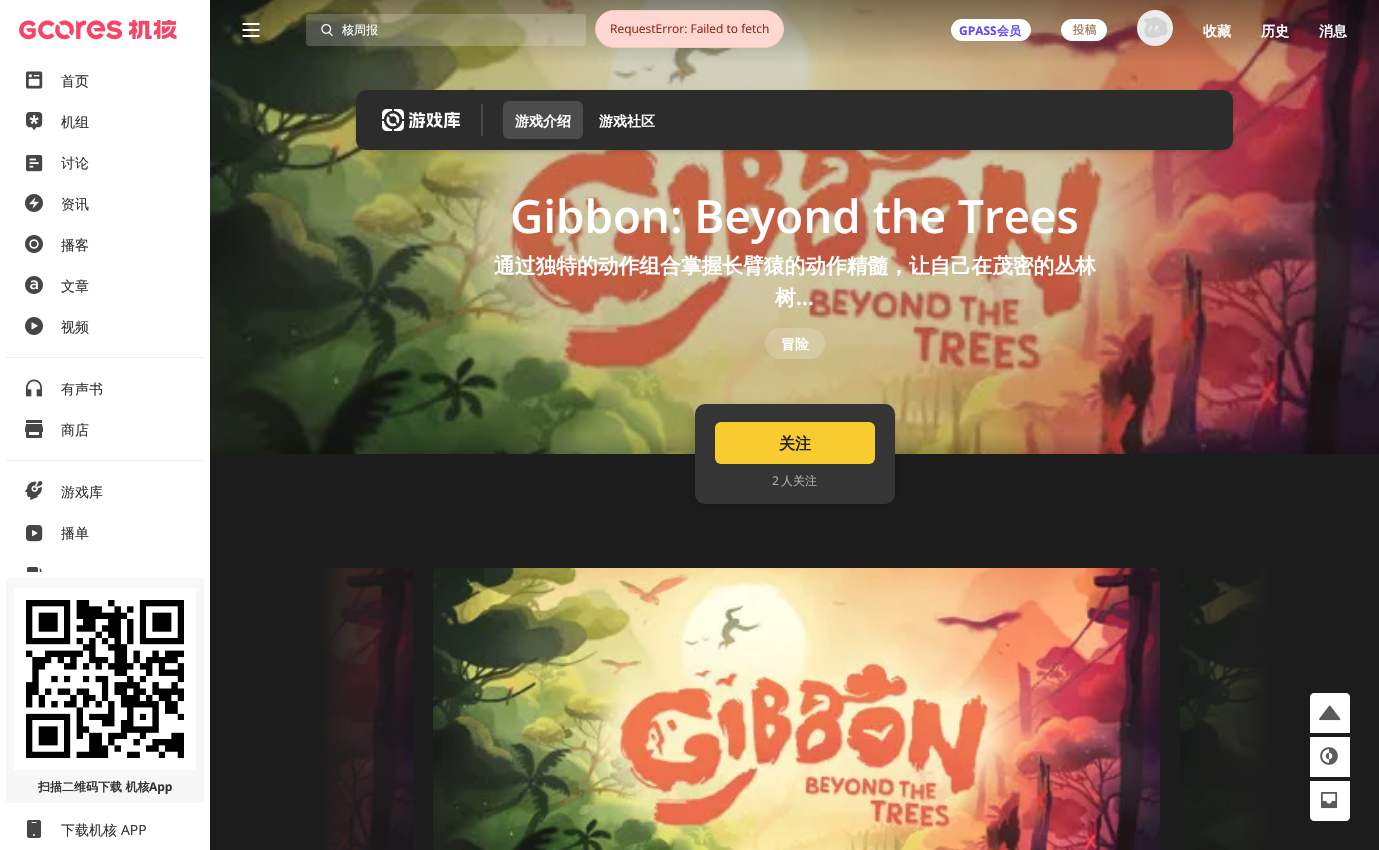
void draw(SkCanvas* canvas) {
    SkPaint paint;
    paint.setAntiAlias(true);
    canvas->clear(0xFF1C1C1C);
    paint.setColor(0xFFFFFFFF);
    canvas->drawRect(SkRect::MakeXYWH(0, 0, 210, 850), paint);
    canvas->drawImageRect(SkImages::DeferredFromEncodedData(SkData::MakeFromFileName("img1.png")), SkRect::MakeXYWH(19, 20, 158, 20), SkSamplingOptions());
    canvas->drawImageRect(SkImages::DeferredFromEncodedData(SkData::MakeFromFileName("img2.png")), SkRect::MakeXYWH(26, 71, 17, 18), SkSamplingOptions());
    SkFont font1(fontMgr->matchFamilyStyle("WenQuanYi Zen Hei", SkFontStyle(500, SkFontStyle::kNormal_Width, SkFontStyle::kUpright_Slant)), 14);
    font1.setSubpixel(true);
    paint.setColor(0xFF323232);
    canvas->drawString("首页", 61, 86, font1, paint);
    canvas->drawImageRect(SkImages::DeferredFromEncodedData(SkData::MakeFromFileName("img3.png")), SkRect::MakeXYWH(26, 112, 17, 18), SkSamplingOptions());
    canvas->drawString("机组", 61, 127, font1, paint);
    canvas->drawImageRect(SkImages::DeferredFromEncodedData(SkData::MakeFromFileName("img4.png")), SkRect::MakeXYWH(26, 155, 17, 17), SkSamplingOptions());
    canvas->drawString("讨论", 61, 168, font1, paint);
    canvas->drawImageRect(SkImages::DeferredFromEncodedData(SkData::MakeFromFileName("img5.png")), SkRect::MakeXYWH(25, 194, 18, 18), SkSamplingOptions());
    canvas->drawString("资讯", 61, 209, font1, paint);
    canvas->drawImageRect(SkImages::DeferredFromEncodedData(SkData::MakeFromFileName("img6.png")), SkRect::MakeXYWH(25, 235, 18, 18), SkSamplingOptions());
    canvas->drawString("播客", 61, 250, font1, paint);
    canvas->drawImageRect(SkImages::DeferredFromEncodedData(SkData::MakeFromFileName("img7.png")), SkRect::MakeXYWH(25, 276, 18, 18), SkSamplingOptions());
    canvas->drawString("文章", 61, 291, font1, paint);
    canvas->drawImageRect(SkImages::DeferredFromEncodedData(SkData::MakeFromFileName("img8.png")), SkRect::MakeXYWH(25, 317, 18, 18), SkSamplingOptions());
    canvas->drawString("视频", 61, 332, font1, paint);
    paint.setColor(0xFFF0F0F0);
    canvas->drawRect(SkRect::MakeXYWH(6, 357, 198, 1), paint);
    canvas->drawImageRect(SkImages::DeferredFromEncodedData(SkData::MakeFromFileName("img9.png")), SkRect::MakeXYWH(26, 379, 16, 18), SkSamplingOptions());
    paint.setColor(0xFF323232);
    canvas->drawString("有声书", 61, 394, font1, paint);
    canvas->drawImageRect(SkImages::DeferredFromEncodedData(SkData::MakeFromFileName("img10.png")), SkRect::MakeXYWH(25, 420, 18, 18), SkSamplingOptions());
    canvas->drawString("商店", 61, 435, font1, paint);
    paint.setColor(0xFFF0F0F0);
    canvas->drawRect(SkRect::MakeXYWH(6, 460, 198, 1), paint);
    canvas->drawImageRect(SkImages::DeferredFromEncodedData(SkData::MakeFromFileName("img11.png")), SkRect::MakeXYWH(25, 481, 18, 19), SkSamplingOptions());
    paint.setColor(0xFF323232);
    canvas->drawString("游戏库", 61, 497, font1, paint);
    canvas->drawImageRect(SkImages::DeferredFromEncodedData(SkData::MakeFromFileName("img12.png")), SkRect::MakeXYWH(26, 525, 17, 17), SkSamplingOptions());
    canvas->drawString("播单", 61, 538, font1, paint);
    canvas->drawImageRect(SkImages::DeferredFromEncodedData(SkData::MakeFromFileName("img13.png")), SkRect::MakeXYWH(27, 567, 15, 5), SkSamplingOptions());
    paint.setColor(0xFFF7F7F8);
    canvas->drawRoundRect(SkRect::MakeXYWH(6, 578, 198, 225), 4, 4, paint);
    paint.setColor(0xFFFFFFFF);
    canvas->drawRect(SkRect::MakeXYWH(14, 588, 182, 182), paint);
    canvas->drawImageRect(SkImages::DeferredFromEncodedData(SkData::MakeFromFileName("img14.png")), SkRect::MakeXYWH(26, 600, 158, 158), SkSamplingOptions());
    SkFont font2(fontMgr->matchFamilyStyle("WenQuanYi Zen Hei", SkFontStyle::Bold()), 12);
    font2.setSubpixel(true);
    paint.setColor(0xFF323232);
    canvas->drawString("扫描二维码", 38, 791, font2, paint);
    canvas->drawString("下载 机核", 98, 791, font2, paint);
    SkFont font3(fontMgr->matchFamilyStyle("Open Sans", SkFontStyle::Bold()), 12);
    font3.setSubpixel(true);
    canvas->drawString("App", 149, 791, font3, paint);
    canvas->drawImageRect(SkImages::DeferredFromEncodedData(SkData::MakeFromFileName("img15.png")), SkRect::MakeXYWH(27, 820, 14, 18), SkSamplingOptions());
    canvas->drawString("下载机核", 61, 835, font1, paint);
    SkFont font4(fontMgr->matchFamilyStyle("Open Sans", SkFontStyle::Normal()), 14);
    font4.setSubpixel(true);
    canvas->drawString("APP", 121, 835, font4, paint);
    canvas->drawImageRect(SkImages::DeferredFromEncodedData(SkData::MakeFromFileName("img20.png")), SkRect::MakeXYWH(210, 0, 1169, 454), SkSamplingOptions());
    canvas->drawImageRect(SkImages::DeferredFromEncodedData(SkData::MakeFromFileName("img16.png")), SkRect::MakeXYWH(242, 23, 18, 14), SkSamplingOptions());
    paint.setColor(0x33FFFFFF);
    canvas->drawRoundRect(SkRect::MakeXYWH(306, 14, 280, 32), 4, 4, paint);
    canvas->drawImageRect(SkImages::DeferredFromEncodedData(SkData::MakeFromFileName("img17.png")), SkRect::MakeXYWH(321, 24, 12, 12), SkSamplingOptions());
    SkFont font5(fontMgr->matchFamilyStyle("WenQuanYi Zen Hei", SkFontStyle(500, SkFontStyle::kNormal_Width, SkFontStyle::kUpright_Slant)), 12);
    font5.setSubpixel(true);
    paint.setColor(0xFFFFFFFF);
    canvas->drawString("核周报", 342, 34, font5, paint);
    canvas->drawRoundRect(SkRect::MakeXYWH(951, 19, 80, 22), 11, 11, paint);
    paint.setColor(0xFF5E4BFF);
    canvas->drawString("GPASS", 959, 35, font3, paint);
    canvas->drawString("会员", 997, 35, font2, paint);
    canvas->drawImageRect(SkImages::DeferredFromEncodedData(SkData::MakeFromFileName("img18.png")), SkRect::MakeXYWH(1061, 19, 46, 22), SkSamplingOptions());
    canvas->drawImageRect(SkImages::DeferredFromEncodedData(SkData::MakeFromFileName("img19.png")), SkRect::MakeXYWH(1137, 10, 36, 36), SkSamplingOptions());
    SkFont font6(fontMgr->matchFamilyStyle("WenQuanYi Zen Hei", SkFontStyle::Bold()), 14);
    font6.setSubpixel(true);
    paint.setColor(0xFFFFFFFF);
    canvas->drawString("收藏", 1203, 36, font6, paint);
    canvas->drawString("历史", 1261, 36, font6, paint);
    canvas->drawString("消息", 1319, 36, font6, paint);
    paint.setColor(0x26000000);
    paint.setMaskFilter(SkMaskFilter::MakeBlur(kNormal_SkBlurStyle, 2));
    canvas->drawRoundRect(SkRect::MakeXYWH(356, 92, 877, 60), 10, 10, paint);
    paint.setMaskFilter(nullptr);
    paint.setColor(0xFF1C1C1C);
    canvas->drawRoundRect(SkRect::MakeXYWH(356, 90, 877, 60), 10, 10, paint);
    paint.setColor(0x12FFFFFF);
    canvas->drawRoundRect(SkRect::MakeXYWH(356, 90, 877, 60), 10, 10, paint);
    canvas->drawImageRect(SkImages::DeferredFromEncodedData(SkData::MakeFromFileName("img21.png")), SkRect::MakeXYWH(382, 109, 78, 22), SkSamplingOptions());
    paint.setColor(0xFF4C4C4C);
    canvas->drawRoundRect(SkRect::MakeXYWH(481, 104, 2, 32), 1, 1, paint);
    canvas->drawRoundRect(SkRect::MakeXYWH(503, 101, 80, 38), 6, 6, paint);
    paint.setColor(0xFFFFFFFF);
    canvas->drawString("游戏介绍", 515, 126, font6, paint);
    canvas->drawString("游戏社区", 599, 126, font6, paint);
    SkFont font7(fontMgr->matchFamilyStyle("Open Sans", SkFontStyle(600, SkFontStyle::kNormal_Width, SkFontStyle::kUpright_Slant)), 45.75f);
    font7.setSubpixel(true);
    canvas->drawString("Gibbon: Beyond the Trees", 510, 233, font7, paint);
    SkFont font8(fontMgr->matchFamilyStyle("WenQuanYi Zen Hei", SkFontStyle::Bold()), 20.75f);
    font8.setSubpixel(true);
    canvas->drawString("通过独特的动作组合掌握长臂猿的动作精髓，让自己在茂密的丛林", 494, 273, font8, paint);
    canvas->drawString("树", 775, 305, font8, paint);
    SkFont font9(fontMgr->matchFamilyStyle("Open Sans", SkFontStyle::Bold()), 20.75f);
    font9.setSubpixel(true);
    canvas->drawString("…", 796, 305, font9, paint);
    paint.setColor(0x33FFFFFF);
    canvas->drawRoundRect(SkRect::MakeXYWH(765, 328, 60, 31), 15.5f, 15.5f, paint);
    paint.setColor(0xFFFFFFFF);
    canvas->drawString("冒险", 781, 349, font6, paint);
    paint.setColor(0x26000000);
    paint.setMaskFilter(SkMaskFilter::MakeBlur(kNormal_SkBlurStyle, 6));
    canvas->drawRoundRect(SkRect::MakeXYWH(695, 408, 200, 100), 10, 10, paint);
    paint.setMaskFilter(nullptr);
    paint.setColor(0xFF353535);
    canvas->drawRoundRect(SkRect::MakeXYWH(695, 404, 200, 100), 10, 10, paint);
    paint.setColor(0xFFF8CC2F);
    canvas->drawRoundRect(SkRect::MakeXYWH(715, 422, 160, 42), 6, 6, paint);
    SkFont font10(fontMgr->matchFamilyStyle("WenQuanYi Zen Hei", SkFontStyle::Bold()), 16);
    font10.setSubpixel(true);
    paint.setColor(0xFF222222);
    canvas->drawString("关注", 779, 449, font10, paint);
    SkFont font11(fontMgr->matchFamilyStyle("Open Sans", SkFontStyle::Normal()), 12);
    font11.setSubpixel(true);
    paint.setColor(0xFFAEAEAE);
    canvas->drawString("2", 772, 485, font11, paint);
    canvas->drawString("人关注", 781, 485, font5, paint);
    paint.setColor(0xFF0B0B0B);
    canvas->drawPath(SkPathBuilder().moveTo(321, 568).lineTo(407, 568).cubicTo(410.5f, 568, 413, 570.5f, 413, 574).lineTo(413, 850).cubicTo(413, 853.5f, 410.5f, 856, 407, 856).lineTo(321, 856).close().detach(), paint);
    canvas->drawImageRect(SkImages::DeferredFromEncodedData(SkData::MakeFromFileName("img22.png")), SkRect::MakeXYWH(322, 568, 91, 282), SkSamplingOptions());
    canvas->drawImageRect(SkImages::DeferredFromEncodedData(SkData::MakeFromFileName("img23.png")), SkRect::MakeXYWH(433, 568, 727, 282), SkSamplingOptions());
    canvas->drawPath(SkPathBuilder().moveTo(1186, 568).lineTo(1268, 568).lineTo(1268, 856).lineTo(1186, 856).cubicTo(1182.5f, 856, 1180, 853.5f, 1180, 850).lineTo(1180, 574).cubicTo(1180, 570.5f, 1182.5f, 568, 1186, 568).close().detach(), paint);
    canvas->drawImageRect(SkImages::DeferredFromEncodedData(SkData::MakeFromFileName("img24.png")), SkRect::MakeXYWH(1180, 568, 87, 282), SkSamplingOptions());
    {
        const SkColor colors[] = {0xFF1C1C1C, 0x001C1C1C};
        const float stops[] = {0, 1};
        const SkPoint ends[] = {{321, 738}, {463, 738}};
        paint.setShader(SkGradientShader::MakeLinear(ends, colors, stops, 2, SkTileMode::kClamp));
        paint.setAlpha(255);
    }
    canvas->drawRect(SkRect::MakeXYWH(321, 568, 139, 282), paint);
    {
        const SkColor colors[] = {0xFF1C1C1C, 0x001C1C1C};
        const float stops[] = {0, 1};
        const SkPoint ends[] = {{1268, 738}, {1126, 738}};
        paint.setShader(SkGradientShader::MakeLinear(ends, colors, stops, 2, SkTileMode::kClamp));
        paint.setAlpha(255);
    }
    canvas->drawRect(SkRect::MakeXYWH(1133, 568, 135, 282), paint);
    paint.setShader(nullptr);
    paint.setColor(0xFFFFD8D2);
    canvas->drawRoundRect(SkRect::MakeXYWH(595.5f, 10.5f, 188, 37), 18.5f, 18.5f, paint);
    paint.setStyle(SkPaint::kStroke_Style);
    paint.setStrokeWidth(1);
    paint.setColor(0xFFFFC5BB);
    canvas->drawRoundRect(SkRect::MakeXYWH(595.5f, 10.5f, 188, 37), 18.5f, 18.5f, paint);
    paint.setStyle(SkPaint::kFill_Style);
    paint.setColor(0xFF992511);
    canvas->drawString("RequestError: Failed to fetch", 610, 33, font11, paint);
    paint.setColor(0xFFFFFFFF);
    canvas->drawPath(SkPathBuilder().moveTo(1314, 693).lineTo(1346, 693).cubicTo(1348, 693, 1350, 695, 1350, 697).lineTo(1350, 733).lineTo(1310, 733).lineTo(1310, 697).cubicTo(1310, 695, 1312, 693, 1314, 693).close().detach(), paint);
    canvas->drawImageRect(SkImages::DeferredFromEncodedData(SkData::MakeFromFileName("img25.png")), SkRect::MakeXYWH(1319, 705, 22, 16), SkSamplingOptions());
    canvas->drawRect(SkRect::MakeXYWH(1310, 737, 40, 40), paint);
    canvas->drawImageRect(SkImages::DeferredFromEncodedData(SkData::MakeFromFileName("img26.png")), SkRect::MakeXYWH(1320, 747, 18, 18), SkSamplingOptions());
    canvas->drawPath(SkPathBuilder().moveTo(1310, 781).lineTo(1350, 781).lineTo(1350, 817).cubicTo(1350, 819, 1348, 821, 1346, 821).lineTo(1314, 821).cubicTo(1312, 821, 1310, 819, 1310, 817).close().detach(), paint);
    canvas->drawImageRect(SkImages::DeferredFromEncodedData(SkData::MakeFromFileName("img27.png")), SkRect::MakeXYWH(1321, 792, 17, 17), SkSamplingOptions());
}
